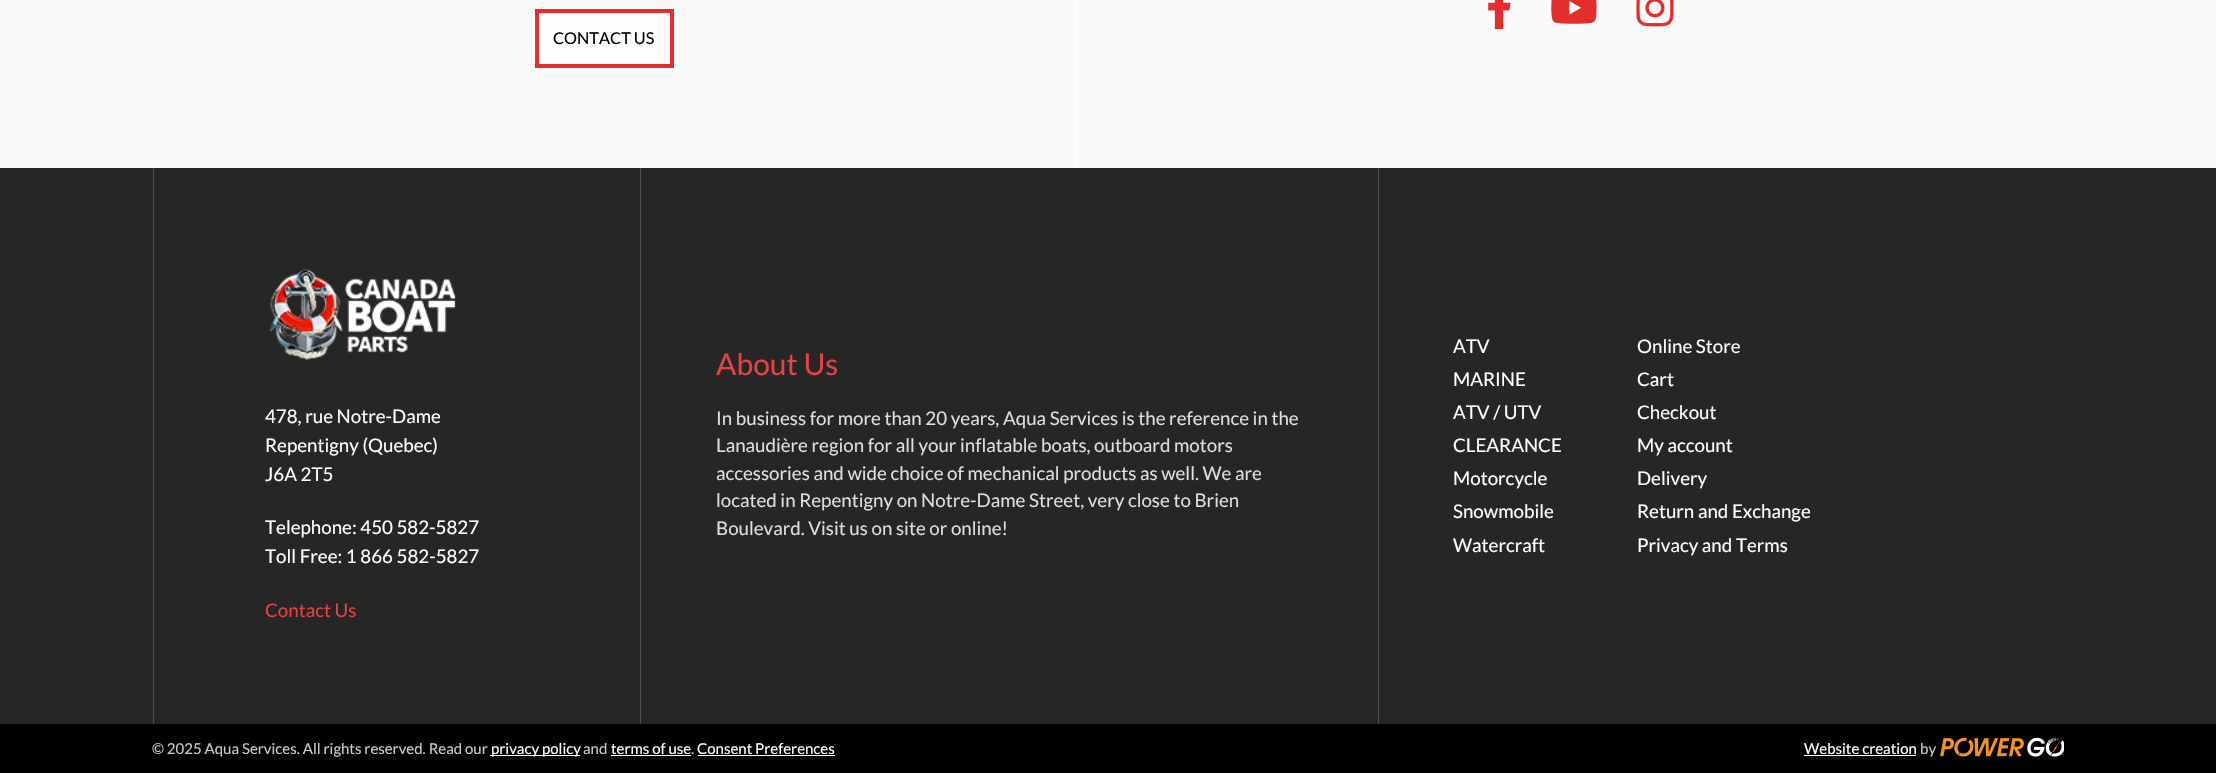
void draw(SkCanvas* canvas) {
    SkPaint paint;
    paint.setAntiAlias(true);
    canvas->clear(0xFFFAFAFA);
    paint.setColor(0xFFFDFDFD);
    canvas->drawRect(SkRect::MakeXYWH(537, 11, 135, 55), paint);
    paint.setStyle(SkPaint::kStroke_Style);
    paint.setStrokeWidth(4);
    paint.setColor(0xFFE32E2C);
    canvas->drawRect(SkRect::MakeXYWH(537, 11, 135, 55), paint);
    SkFont font1(fontMgr->matchFamilyStyle("Lato", SkFontStyle::Normal()), 16.25f);
    font1.setSubpixel(true);
    paint.setStyle(SkPaint::kFill_Style);
    paint.setColor(0xFF000000);
    canvas->drawString("CONTACT US", 553, 44, font1, paint);
    paint.setColor(0xFFFFFFFF);
    canvas->drawRect(SkRect::MakeXYWH(1075, 0, 1, 168), paint);
    canvas->drawImageRect(SkImages::DeferredFromEncodedData(SkData::MakeFromFileName("img1.png")), SkRect::MakeXYWH(1488, 0, 23, 30), SkSamplingOptions());
    canvas->drawImageRect(SkImages::DeferredFromEncodedData(SkData::MakeFromFileName("img2.png")), SkRect::MakeXYWH(1551, 0, 46, 24), SkSamplingOptions());
    canvas->drawImageRect(SkImages::DeferredFromEncodedData(SkData::MakeFromFileName("img3.png")), SkRect::MakeXYWH(1636, 0, 38, 27), SkSamplingOptions());
    paint.setColor(0xFF262626);
    canvas->drawRect(SkRect::MakeXYWH(0, 168, 2216, 556), paint);
    paint.setColor(0xFF515151);
    canvas->drawRect(SkRect::MakeXYWH(153, 168, 1, 556), paint);
    canvas->drawImageRect(SkImages::DeferredFromEncodedData(SkData::MakeFromFileName("img4.png")), SkRect::MakeXYWH(269, 269, 187, 91), SkSamplingOptions());
    SkFont font2(fontMgr->matchFamilyStyle("Lato", SkFontStyle::Normal()), 18.75f);
    font2.setSubpixel(true);
    paint.setColor(0xFFFFFFFF);
    canvas->drawString("478, rue Notre-Dame", 265, 423, font2, paint);
    canvas->drawString("Repentigny (Quebec)", 265, 452, font2, paint);
    canvas->drawString("J6A 2T5", 265, 481, font2, paint);
    canvas->drawString("Telephone: 450 582-5827", 265, 534, font2, paint);
    canvas->drawString("Toll Free: 1 866 582-5827", 265, 563, font2, paint);
    paint.setColor(0xFFE64443);
    canvas->drawString("Contact Us", 265, 617, font2, paint);
    paint.setColor(0xFF515151);
    canvas->drawRect(SkRect::MakeXYWH(640, 168, 1, 556), paint);
    SkFont font3(fontMgr->matchFamilyStyle("Lato", SkFontStyle::Normal()), 30);
    font3.setSubpixel(true);
    paint.setColor(0xFFE64443);
    canvas->drawString("About Us", 716, 375, font3, paint);
    paint.setColor(0xFFDFDFDF);
    canvas->drawString("In business for more than 20 years, Aqua Services is the reference in the", 716, 425, font2, paint);
    canvas->drawString("Lanaudière region for all your inflatable boats, outboard motors", 716, 452, font2, paint);
    canvas->drawString("accessories and wide choice of mechanical products as well. We are", 716, 480, font2, paint);
    canvas->drawString("located in Repentigny on Notre-Dame Street, very close to Brien", 716, 507, font2, paint);
    canvas->drawString("Boulevard. Visit us on site or online!", 716, 535, font2, paint);
    paint.setColor(0xFF515151);
    canvas->drawRect(SkRect::MakeXYWH(1378, 168, 1, 556), paint);
    paint.setColor(0xFFFFFFFF);
    canvas->drawString("ATV", 1453, 353, font2, paint);
    canvas->drawString("MARINE", 1453, 386, font2, paint);
    canvas->drawString("ATV / UTV", 1453, 419, font2, paint);
    canvas->drawString("CLEARANCE", 1453, 452, font2, paint);
    canvas->drawString("Motorcycle", 1453, 485, font2, paint);
    canvas->drawString("Snowmobile", 1453, 518, font2, paint);
    canvas->drawString("Watercraft", 1453, 552, font2, paint);
    canvas->drawString("Online Store", 1637, 353, font2, paint);
    canvas->drawString("Cart", 1637, 386, font2, paint);
    canvas->drawString("Checkout", 1637, 419, font2, paint);
    canvas->drawString("My account", 1637, 452, font2, paint);
    canvas->drawString("Delivery", 1637, 485, font2, paint);
    canvas->drawString("Return and Exchange", 1637, 518, font2, paint);
    canvas->drawString("Privacy and Terms", 1637, 552, font2, paint);
    paint.setColor(0xFF000000);
    canvas->drawRect(SkRect::MakeXYWH(0, 724, 2216, 49), paint);
    SkFont font4(fontMgr->matchFamilyStyle("Lato", SkFontStyle::Normal()), 15);
    font4.setSubpixel(true);
    paint.setColor(0xFFCCCCCC);
    canvas->drawString("© 2025 Aqua Services. All rights reserved. Read our", 152, 754, font4, paint);
    paint.setColor(0xFFFFFFFF);
    canvas->drawRect(SkRect::MakeXYWH(490, 755, 90, 1), paint);
    canvas->drawString("privacy policy", 491, 754, font4, paint);
    paint.setColor(0xFFCCCCCC);
    canvas->drawString("and", 583, 754, font4, paint);
    paint.setColor(0xFFFFFFFF);
    canvas->drawString("terms of use", 611, 754, font4, paint);
    canvas->drawRect(SkRect::MakeXYWH(611, 755, 80, 1), paint);
    paint.setColor(0xFFCCCCCC);
    canvas->drawString(".", 691, 754, font4, paint);
    paint.setColor(0xFFFFFFFF);
    canvas->drawString("Consent Preferences", 697, 754, font4, paint);
    canvas->drawRect(SkRect::MakeXYWH(698, 755, 137, 1), paint);
    canvas->drawString("Website creation", 1804, 754, font4, paint);
    canvas->drawRect(SkRect::MakeXYWH(1804, 755, 112, 1), paint);
    paint.setColor(0xFFCCCCCC);
    canvas->drawString("by", 1920, 754, font4, paint);
    canvas->drawImageRect(SkImages::DeferredFromEncodedData(SkData::MakeFromFileName("img5.png")), SkRect::MakeXYWH(1940, 737, 124, 20), SkSamplingOptions());
}
